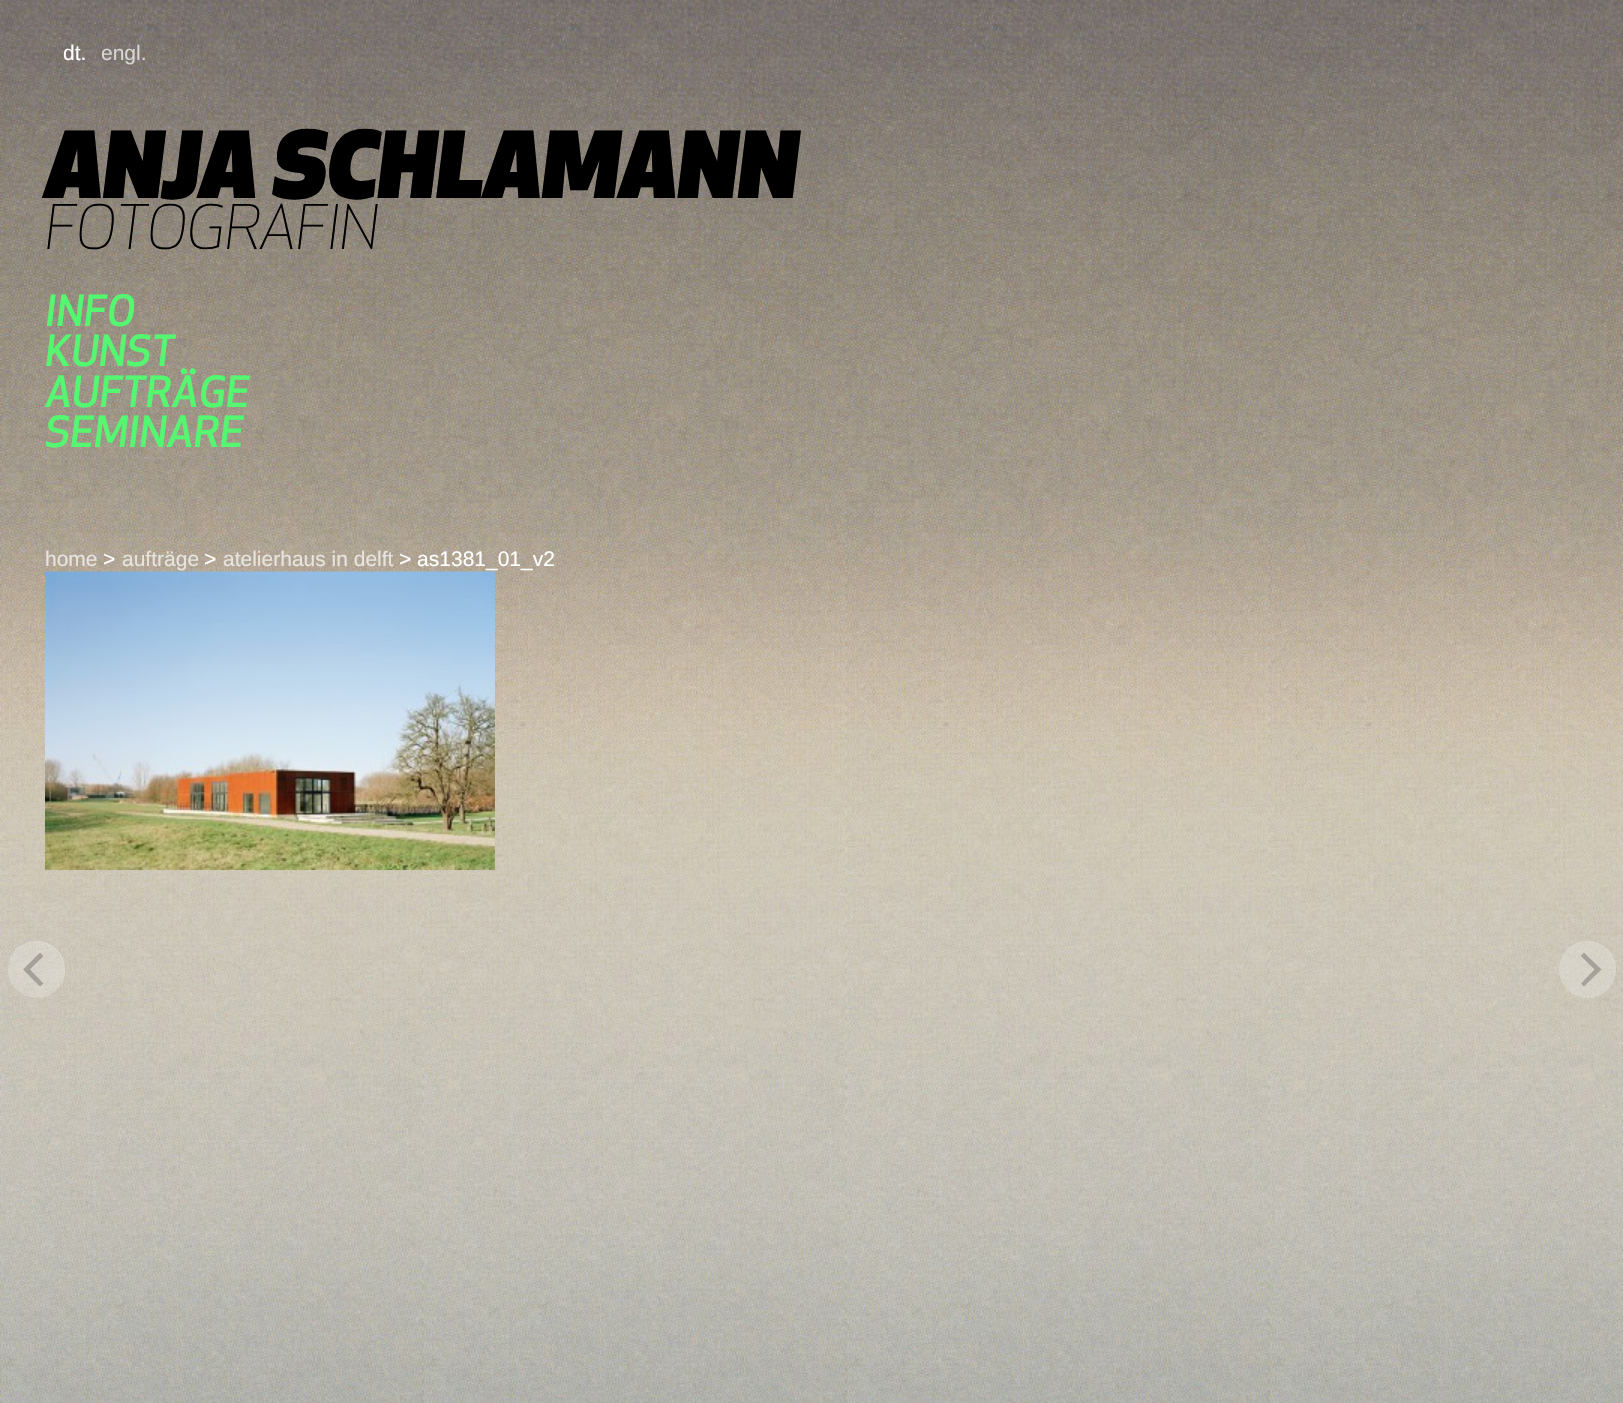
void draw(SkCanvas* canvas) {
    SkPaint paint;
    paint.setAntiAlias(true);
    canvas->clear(0xFFFFFFFF);
    canvas->drawImageRect(SkImages::DeferredFromEncodedData(SkData::MakeFromFileName("img1.png")), SkRect::MakeXYWH(0, 0, 1623, 1403), SkSamplingOptions());
    SkFont font1(fontMgr->matchFamilyStyle("Liberation Sans", SkFontStyle::Normal()), 21);
    font1.setSubpixel(true);
    paint.setColor(0xFFFFFFFF);
    canvas->drawString("dt.", 63, 60, font1, paint);
    paint.setColor(0xFFD8D6D4);
    canvas->drawString("engl.", 101, 60, font1, paint);
    SkFont font2(fontMgr->matchFamilyStyle("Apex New", SkFontStyle::BoldItalic()), 90);
    font2.setSubpixel(true);
    paint.setColor(0xFF000000);
    canvas->drawString("ANJA SCHLAMANN", 45, 198, font2, paint);
    SkFont font3(fontMgr->matchFamilyStyle("Apex New", SkFontStyle(500, SkFontStyle::kNormal_Width, SkFontStyle::kItalic_Slant)), 60);
    font3.setSubpixel(true);
    canvas->drawString("FOTOGRAFIN", 45, 249, font3, paint);
    SkFont font4(fontMgr->matchFamilyStyle("Apex New", SkFontStyle(600, SkFontStyle::kNormal_Width, SkFontStyle::kItalic_Slant)), 42);
    font4.setSubpixel(true);
    paint.setColor(0xFF55F771);
    canvas->drawString("INFO", 45, 326, font4, paint);
    canvas->drawString("KUNST", 45, 366, font4, paint);
    canvas->drawString("AUFTRÄGE", 45, 407, font4, paint);
    canvas->drawString("SEMINARE", 45, 447, font4, paint);
    paint.setColor(0xFFE7E4DF);
    canvas->drawString("home", 45, 566, font1, paint);
    paint.setColor(0xFFFFFFFF);
    canvas->drawString(">", 103, 566, font1, paint);
    paint.setColor(0xFFE7E4DF);
    canvas->drawString("aufträge", 122, 566, font1, paint);
    paint.setColor(0xFFFFFFFF);
    canvas->drawString(">", 204, 566, font1, paint);
    paint.setColor(0xFFE7E4DF);
    canvas->drawString("atelierhaus in delft", 223, 566, font1, paint);
    paint.setColor(0xFFFFFFFF);
    canvas->drawString("> as1381_01_v2", 399, 566, font1, paint);
    canvas->drawImageRect(SkImages::DeferredFromEncodedData(SkData::MakeFromFileName("img2.png")), SkRect::MakeXYWH(45, 571, 450, 299), SkSamplingOptions());
    paint.setColor(0x38FFFFFF);
    canvas->drawCircle(36.5f, 969.5f, 28.5f, paint);
    paint.setColor(0x26FFFFFF);
    canvas->drawPath(SkPathBuilder().moveTo(36, 942).cubicTo(60, 942, 72, 970, 58, 989).cubicTo(76, 969, 58, 936, 31, 942).cubicTo(25, 943, 20, 945, 16, 949).cubicTo(11, 955, 8, 962, 8, 970).cubicTo(8, 955, 20, 942, 36, 942).close().detach(), paint);
    paint.setColor(0x4D333333);
    canvas->drawPath(SkPathBuilder().moveTo(23, 969.5f).lineTo(40, 986.5f).lineTo(43.5f, 983.5f).lineTo(30, 969.5f).lineTo(43.5f, 956).lineTo(40, 952.5f).close().detach(), paint);
    paint.setColor(0x38FFFFFF);
    canvas->drawCircle(1587.5f, 969.5f, 28.5f, paint);
    paint.setColor(0x26FFFFFF);
    canvas->drawPath(SkPathBuilder().moveTo(1587, 942).cubicTo(1603, 942, 1616, 955, 1616, 970).cubicTo(1616, 943, 1582, 931, 1565, 952).cubicTo(1571, 946, 1578, 942, 1587, 942).close().detach(), paint);
    paint.setColor(0x4D333333);
    canvas->drawPath(SkPathBuilder().moveTo(1601.5f, 969.5f).lineTo(1584, 952.5f).lineTo(1581, 956).lineTo(1594.5f, 969.5f).lineTo(1581, 983.5f).lineTo(1584, 986.5f).close().detach(), paint);
}
